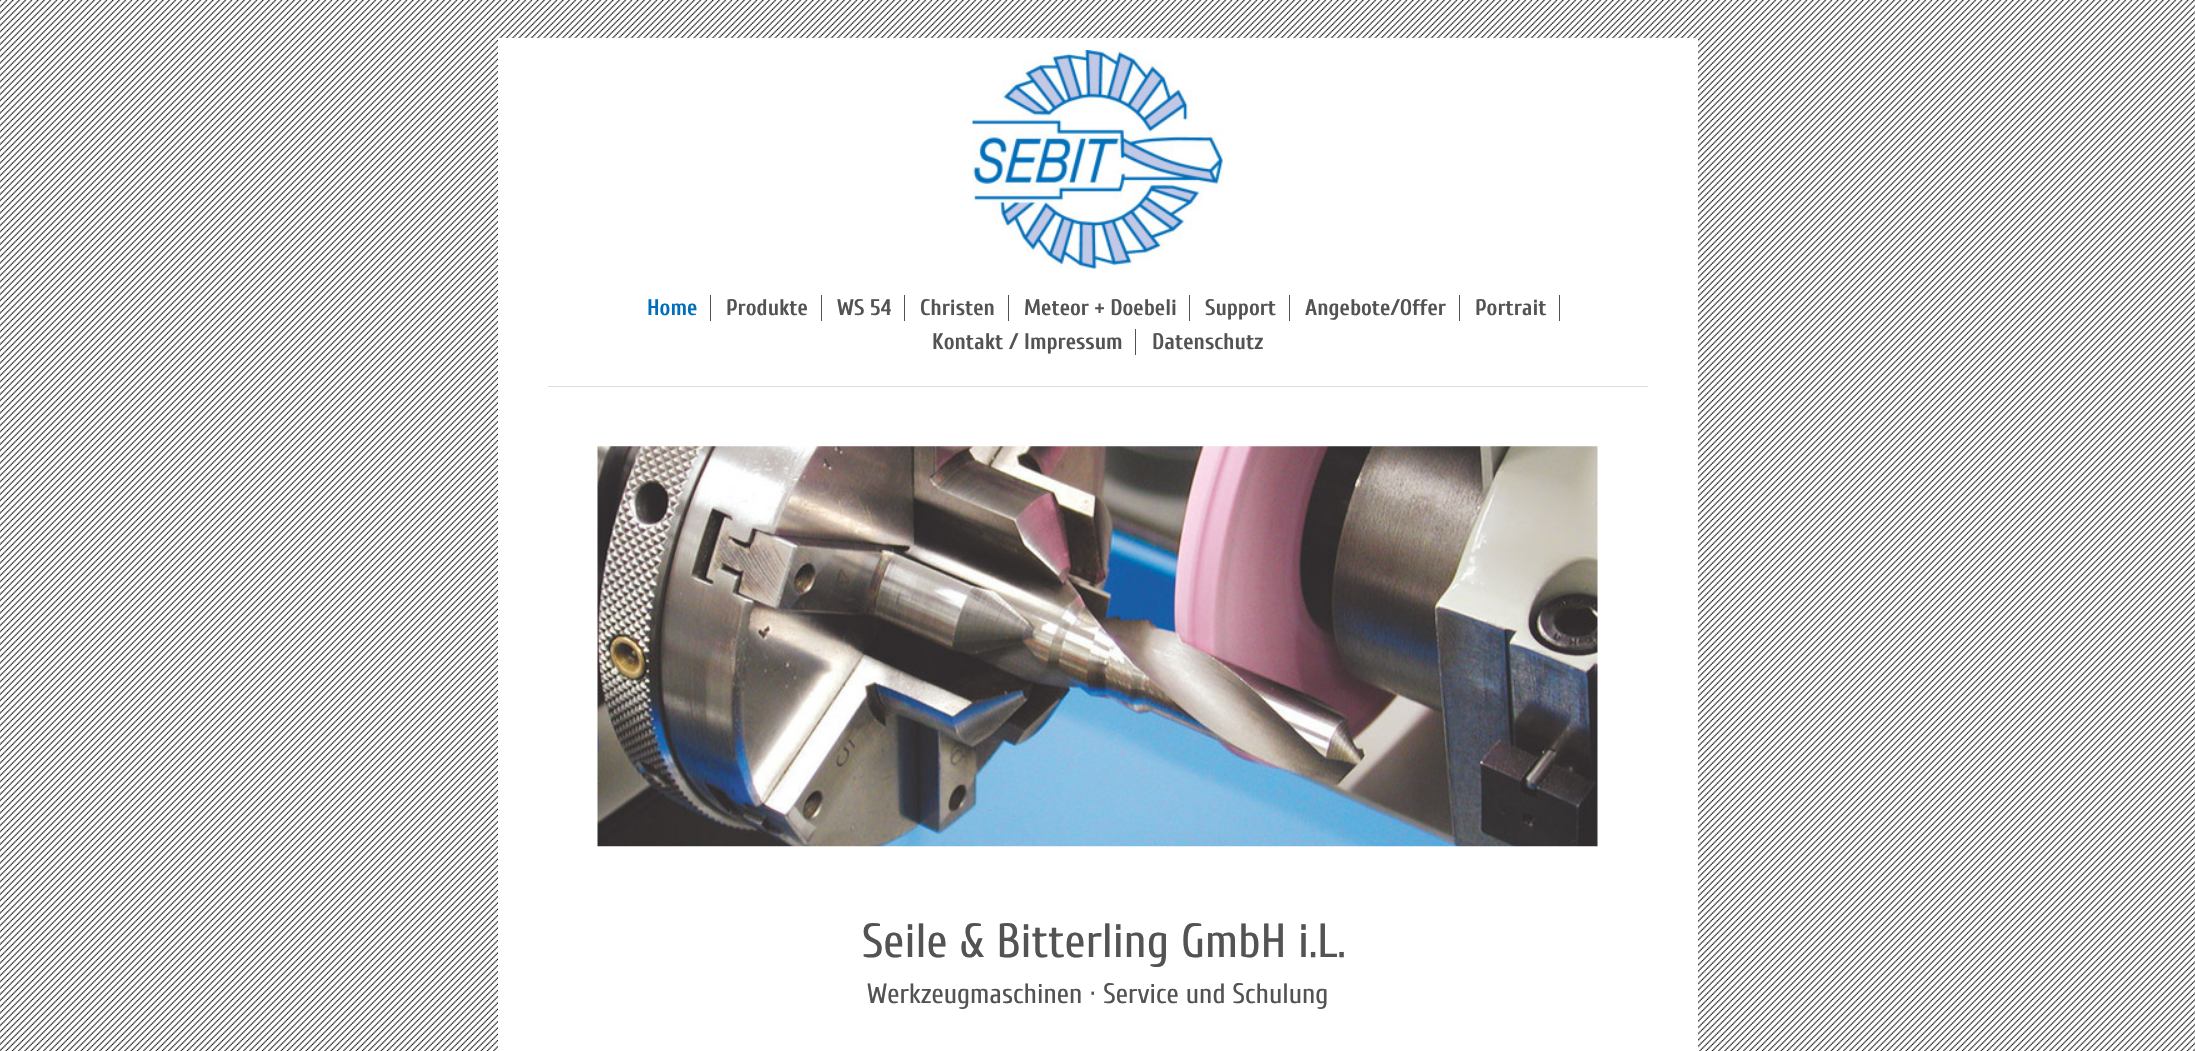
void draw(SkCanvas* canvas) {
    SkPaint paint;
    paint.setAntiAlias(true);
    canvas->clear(0xFFFFFFFF);
    canvas->drawImageRect(SkImages::DeferredFromEncodedData(SkData::MakeFromFileName("img1.png")), SkRect::MakeXYWH(0, 0, 2195, 1051), SkSamplingOptions());
    paint.setColor(0xFFFFFFFF);
    canvas->drawRect(SkRect::MakeXYWH(498, 38, 1200, 1013), paint);
    canvas->drawImageRect(SkImages::DeferredFromEncodedData(SkData::MakeFromFileName("img2.png")), SkRect::MakeXYWH(972, 50, 251, 219), SkSamplingOptions());
    paint.setColor(0xFFDDDDDD);
    canvas->drawRect(SkRect::MakeXYWH(548, 386, 1100, 1), paint);
    paint.setColor(0xFF535353);
    canvas->drawRect(SkRect::MakeXYWH(710, 295, 1, 26), paint);
    SkFont font1(fontMgr->matchFamilyStyle("Cuprum", SkFontStyle::Bold()), 22.5f);
    font1.setSubpixel(true);
    paint.setColor(0xFF006FBB);
    canvas->drawString("Home", 647, 315, font1, paint);
    paint.setColor(0xFF535353);
    canvas->drawRect(SkRect::MakeXYWH(821, 295, 1, 26), paint);
    canvas->drawString("Produkte", 726, 315, font1, paint);
    canvas->drawRect(SkRect::MakeXYWH(904, 295, 1, 26), paint);
    canvas->drawString("WS 54", 837, 315, font1, paint);
    canvas->drawRect(SkRect::MakeXYWH(1008, 295, 1, 26), paint);
    canvas->drawString("Christen", 920, 315, font1, paint);
    canvas->drawRect(SkRect::MakeXYWH(1189, 295, 1, 26), paint);
    canvas->drawString("Meteor + Doebeli", 1024, 315, font1, paint);
    canvas->drawRect(SkRect::MakeXYWH(1289, 295, 1, 26), paint);
    canvas->drawString("Support", 1205, 315, font1, paint);
    canvas->drawRect(SkRect::MakeXYWH(1459, 295, 1, 26), paint);
    canvas->drawString("Angebote/Offer", 1305, 315, font1, paint);
    canvas->drawRect(SkRect::MakeXYWH(1559, 295, 1, 26), paint);
    canvas->drawString("Portrait", 1475, 315, font1, paint);
    canvas->drawRect(SkRect::MakeXYWH(1135, 329, 1, 26), paint);
    canvas->drawString("Kontakt / Impressum", 932, 349, font1, paint);
    canvas->drawString("Datenschutz", 1152, 349, font1, paint);
    canvas->drawImageRect(SkImages::DeferredFromEncodedData(SkData::MakeFromFileName("img3.png")), SkRect::MakeXYWH(597, 446, 1001, 401), SkSamplingOptions());
    SkFont font2(fontMgr->matchFamilyStyle("Cuprum", SkFontStyle::Normal()), 48);
    font2.setSubpixel(true);
    canvas->drawString("Seile & Bitterling GmbH i.L.", 862, 957, font2, paint);
    SkFont font3(fontMgr->matchFamilyStyle("Cuprum", SkFontStyle::Normal()), 28);
    font3.setSubpixel(true);
    canvas->drawString("Werkzeugmaschinen · Service und Schulung", 867, 1003, font3, paint);
}
